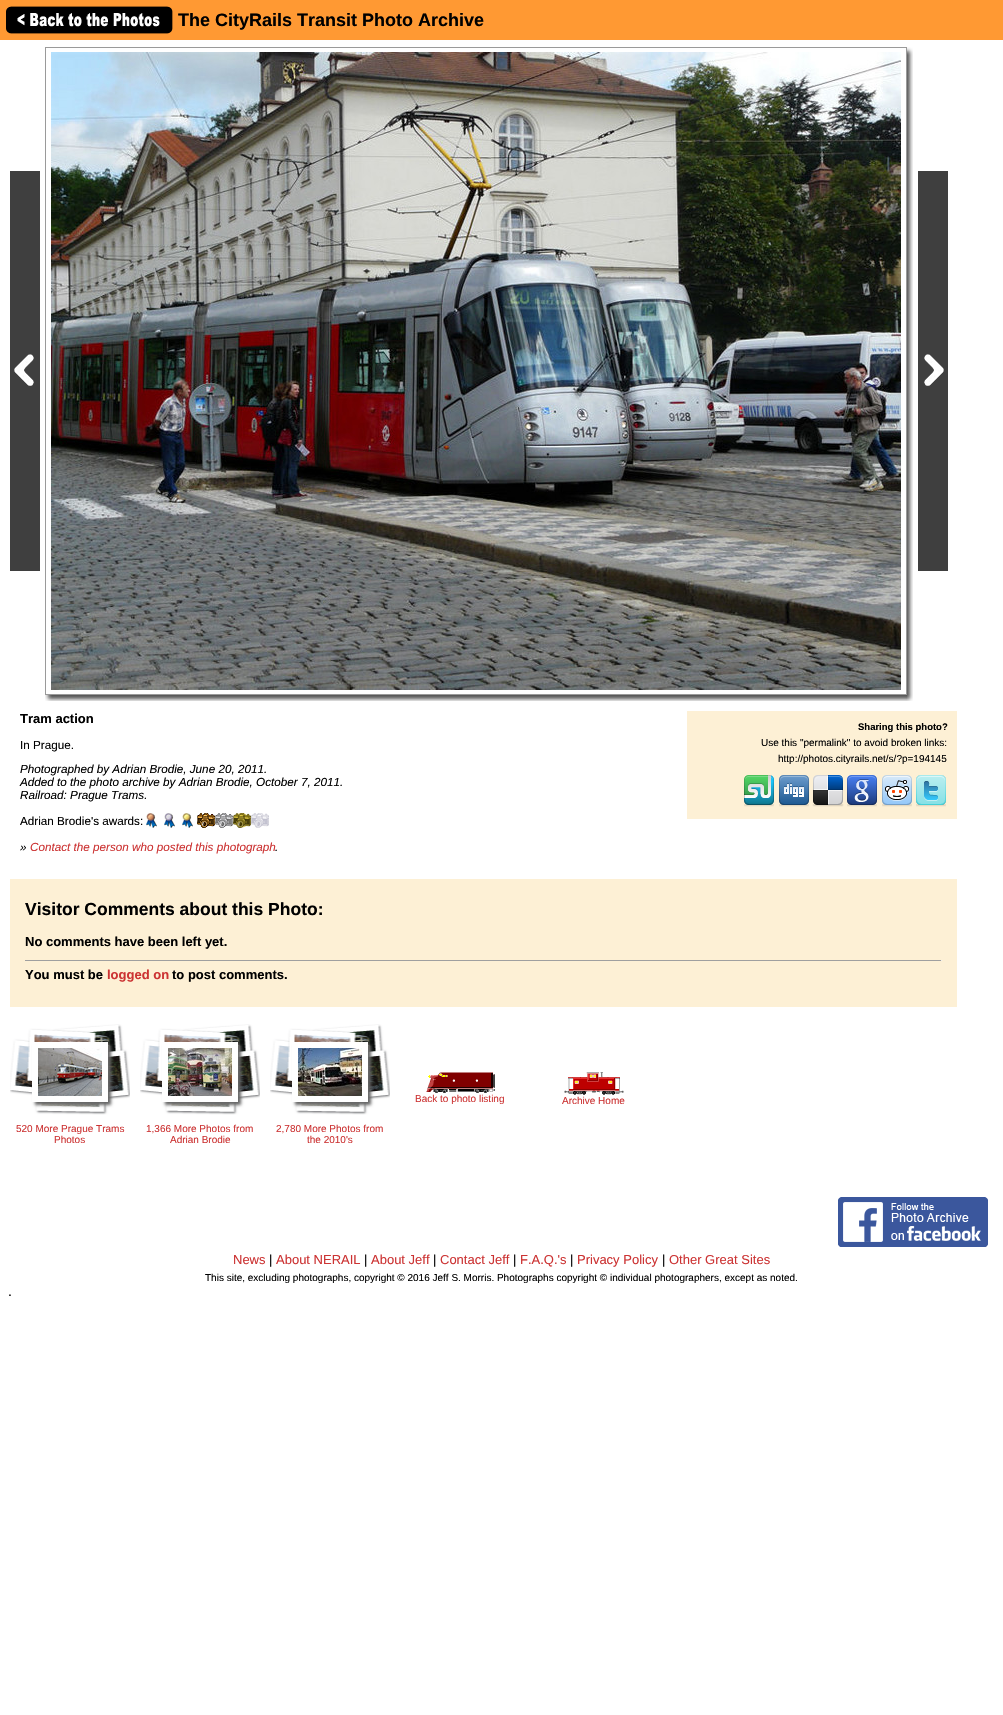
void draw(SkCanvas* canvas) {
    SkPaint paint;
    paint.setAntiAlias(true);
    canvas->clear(0xFFFFFFFF);
    paint.setColor(0xFFFF9933);
    canvas->drawRect(SkRect::MakeXYWH(0, 0, 1003, 40), paint);
    canvas->drawImageRect(SkImages::DeferredFromEncodedData(SkData::MakeFromFileName("img1.png")), SkRect::MakeXYWH(6, 6, 167, 28), SkSamplingOptions());
    SkFont font1(fontMgr->matchFamilyStyle("Liberation Sans", SkFontStyle::Bold()), 18);
    font1.setSubpixel(true);
    paint.setColor(0xFF000000);
    canvas->drawString("The CityRails Transit Photo Archive", 178, 26, font1, paint);
    canvas->drawImageRect(SkImages::DeferredFromEncodedData(SkData::MakeFromFileName("img2.png")), SkRect::MakeXYWH(10, 171, 30, 400), SkSamplingOptions());
    paint.setStyle(SkPaint::kStroke_Style);
    paint.setStrokeWidth(1);
    paint.setColor(0xFF9A9A9A);
    canvas->drawRect(SkRect::MakeXYWH(45.5f, 47.5f, 861, 647), paint);
    canvas->drawImageRect(SkImages::DeferredFromEncodedData(SkData::MakeFromFileName("img3.png")), SkRect::MakeXYWH(51, 52, 850, 638), SkSamplingOptions());
    canvas->drawImageRect(SkImages::DeferredFromEncodedData(SkData::MakeFromFileName("img4.png")), SkRect::MakeXYWH(907, 47, 6, 648), SkSamplingOptions());
    canvas->drawImageRect(SkImages::DeferredFromEncodedData(SkData::MakeFromFileName("img5.png")), SkRect::MakeXYWH(918, 171, 30, 400), SkSamplingOptions());
    canvas->drawImageRect(SkImages::DeferredFromEncodedData(SkData::MakeFromFileName("img6.png")), SkRect::MakeXYWH(45, 695, 862, 6), SkSamplingOptions());
    canvas->drawImageRect(SkImages::DeferredFromEncodedData(SkData::MakeFromFileName("img7.png")), SkRect::MakeXYWH(907, 695, 6, 6), SkSamplingOptions());
    SkFont font2(fontMgr->matchFamilyStyle("Liberation Sans", SkFontStyle::Bold()), 13);
    font2.setSubpixel(true);
    paint.setStyle(SkPaint::kFill_Style);
    paint.setColor(0xFF000000);
    canvas->drawString("Tram action", 20, 723, font2, paint);
    SkFont font3(fontMgr->matchFamilyStyle("Liberation Sans", SkFontStyle::Normal()), 11.7f);
    font3.setSubpixel(true);
    canvas->drawString("In Prague.", 20, 749, font3, paint);
    SkFont font4(fontMgr->matchFamilyStyle("Liberation Sans", SkFontStyle::Italic()), 11.7f);
    font4.setSubpixel(true);
    canvas->drawString("Photographed by Adrian Brodie, June 20, 2011.", 20, 773, font4, paint);
    canvas->drawString("Added to the photo archive by Adrian Brodie, October 7, 2011.", 20, 786, font4, paint);
    canvas->drawString("Railroad: Prague Trams.", 20, 799, font4, paint);
    canvas->drawString("Adrian Brodie's awards:", 20, 825, font3, paint);
    canvas->drawImageRect(SkImages::DeferredFromEncodedData(SkData::MakeFromFileName("img8.png")), SkRect::MakeXYWH(146, 813, 11, 15), SkSamplingOptions());
    canvas->drawImageRect(SkImages::DeferredFromEncodedData(SkData::MakeFromFileName("img9.png")), SkRect::MakeXYWH(164, 813, 11, 15), SkSamplingOptions());
    canvas->drawImageRect(SkImages::DeferredFromEncodedData(SkData::MakeFromFileName("img10.png")), SkRect::MakeXYWH(182, 813, 11, 15), SkSamplingOptions());
    canvas->drawImageRect(SkImages::DeferredFromEncodedData(SkData::MakeFromFileName("img11.png")), SkRect::MakeXYWH(197, 813, 18, 15), SkSamplingOptions());
    canvas->drawImageRect(SkImages::DeferredFromEncodedData(SkData::MakeFromFileName("img12.png")), SkRect::MakeXYWH(215, 813, 18, 15), SkSamplingOptions());
    canvas->drawImageRect(SkImages::DeferredFromEncodedData(SkData::MakeFromFileName("img13.png")), SkRect::MakeXYWH(233, 813, 18, 15), SkSamplingOptions());
    canvas->drawImageRect(SkImages::DeferredFromEncodedData(SkData::MakeFromFileName("img14.png")), SkRect::MakeXYWH(251, 813, 18, 15), SkSamplingOptions());
    canvas->drawString("»", 20, 851, font4, paint);
    paint.setColor(0xFFCC3333);
    canvas->drawString("Contact the person who posted this photograph", 30, 851, font4, paint);
    paint.setColor(0xFF000000);
    canvas->drawString(".", 275, 851, font4, paint);
    paint.setColor(0xFFFDF0D5);
    canvas->drawRect(SkRect::MakeXYWH(687, 711, 270, 108), paint);
    SkFont font5(fontMgr->matchFamilyStyle("Liberation Sans", SkFontStyle::Bold()), 9.5f);
    font5.setSubpixel(true);
    paint.setColor(0xFF000000);
    canvas->drawString("Sharing this photo?", 858, 730, font5, paint);
    SkFont font6(fontMgr->matchFamilyStyle("Liberation Sans", SkFontStyle::Normal()), 10);
    font6.setSubpixel(true);
    canvas->drawString("Use this \"permalink\" to avoid broken links:", 761, 746, font6, paint);
    canvas->drawString("http://photos.cityrails.net/s/?p=194145", 778, 762, font6, paint);
    canvas->drawImageRect(SkImages::DeferredFromEncodedData(SkData::MakeFromFileName("img15.png")), SkRect::MakeXYWH(744, 775, 30, 32), SkSamplingOptions());
    canvas->drawImageRect(SkImages::DeferredFromEncodedData(SkData::MakeFromFileName("img16.png")), SkRect::MakeXYWH(779, 775, 30, 32), SkSamplingOptions());
    canvas->drawImageRect(SkImages::DeferredFromEncodedData(SkData::MakeFromFileName("img17.png")), SkRect::MakeXYWH(812, 775, 32, 32), SkSamplingOptions());
    canvas->drawImageRect(SkImages::DeferredFromEncodedData(SkData::MakeFromFileName("img18.png")), SkRect::MakeXYWH(847, 775, 30, 32), SkSamplingOptions());
    canvas->drawImageRect(SkImages::DeferredFromEncodedData(SkData::MakeFromFileName("img19.png")), SkRect::MakeXYWH(882, 775, 30, 32), SkSamplingOptions());
    canvas->drawImageRect(SkImages::DeferredFromEncodedData(SkData::MakeFromFileName("img20.png")), SkRect::MakeXYWH(916, 775, 30, 32), SkSamplingOptions());
    paint.setColor(0xFFFDF0D5);
    canvas->drawRect(SkRect::MakeXYWH(10, 879, 947, 128), paint);
    SkFont font7(fontMgr->matchFamilyStyle("Liberation Sans", SkFontStyle::Bold()), 17.5f);
    font7.setSubpixel(true);
    paint.setColor(0xFF000000);
    canvas->drawString("Visitor Comments about this Photo:", 25, 915, font7, paint);
    canvas->drawString("No comments have been left yet.", 25, 946, font2, paint);
    paint.setColor(0xFF9F9F9F);
    canvas->drawRect(SkRect::MakeXYWH(25, 960, 917, 1), paint);
    paint.setColor(0xFFEEEEEE);
    canvas->drawRect(SkRect::MakeXYWH(941, 960, 1, 1), paint);
    paint.setColor(0xFF000000);
    canvas->drawString("You must be", 25, 979, font2, paint);
    paint.setColor(0xFFCC3333);
    canvas->drawString("logged on", 107, 979, font2, paint);
    paint.setColor(0xFF000000);
    canvas->drawString("to post comments.", 172, 979, font2, paint);
    canvas->drawImageRect(SkImages::DeferredFromEncodedData(SkData::MakeFromFileName("img21.png")), SkRect::MakeXYWH(426, 1072, 69, 21), SkSamplingOptions());
    paint.setColor(0xFFCC3333);
    canvas->drawString("Back to photo listing", 415, 1102, font6, paint);
    canvas->drawImageRect(SkImages::DeferredFromEncodedData(SkData::MakeFromFileName("img22.png")), SkRect::MakeXYWH(564, 1072, 60, 23), SkSamplingOptions());
    canvas->drawString("Archive Home", 562, 1104, font6, paint);
    canvas->drawImageRect(SkImages::DeferredFromEncodedData(SkData::MakeFromFileName("img23.png")), SkRect::MakeXYWH(10, 1024, 120, 91), SkSamplingOptions());
    paint.setColor(0xFF666666);
    paint.setMaskFilter(SkMaskFilter::MakeBlur(kNormal_SkBlurStyle, 1.5f));
    canvas->drawRect(SkRect::MakeXYWH(35, 1045, 76, 60), paint);
    paint.setMaskFilter(nullptr);
    paint.setColor(0xFFFFFFFF);
    canvas->drawRect(SkRect::MakeXYWH(32, 1042, 76, 60), paint);
    canvas->drawImageRect(SkImages::DeferredFromEncodedData(SkData::MakeFromFileName("img24.png")), SkRect::MakeXYWH(38, 1048, 64, 48), SkSamplingOptions());
    paint.setColor(0xFFCC3333);
    canvas->drawString("520 More Prague Trams", 16, 1132, font6, paint);
    canvas->drawString("Photos", 54, 1143, font6, paint);
    canvas->drawImageRect(SkImages::DeferredFromEncodedData(SkData::MakeFromFileName("img23.png")), SkRect::MakeXYWH(140, 1024, 120, 91), SkSamplingOptions());
    paint.setColor(0xFF666666);
    paint.setMaskFilter(SkMaskFilter::MakeBlur(kNormal_SkBlurStyle, 1.5f));
    canvas->drawRect(SkRect::MakeXYWH(165, 1045, 76, 60), paint);
    paint.setMaskFilter(nullptr);
    paint.setColor(0xFFFFFFFF);
    canvas->drawRect(SkRect::MakeXYWH(162, 1042, 76, 60), paint);
    canvas->drawImageRect(SkImages::DeferredFromEncodedData(SkData::MakeFromFileName("img25.png")), SkRect::MakeXYWH(168, 1048, 64, 48), SkSamplingOptions());
    paint.setColor(0xFFCC3333);
    canvas->drawString("1,366 More Photos from", 146, 1132, font6, paint);
    canvas->drawString("Adrian Brodie", 170, 1143, font6, paint);
    canvas->drawImageRect(SkImages::DeferredFromEncodedData(SkData::MakeFromFileName("img23.png")), SkRect::MakeXYWH(270, 1024, 120, 91), SkSamplingOptions());
    paint.setColor(0xFF666666);
    paint.setMaskFilter(SkMaskFilter::MakeBlur(kNormal_SkBlurStyle, 1.5f));
    canvas->drawRect(SkRect::MakeXYWH(295, 1045, 76, 60), paint);
    paint.setMaskFilter(nullptr);
    paint.setColor(0xFFFFFFFF);
    canvas->drawRect(SkRect::MakeXYWH(292, 1042, 76, 60), paint);
    canvas->drawImageRect(SkImages::DeferredFromEncodedData(SkData::MakeFromFileName("img26.png")), SkRect::MakeXYWH(298, 1048, 64, 48), SkSamplingOptions());
    paint.setColor(0xFFCC3333);
    canvas->drawString("2,780 More Photos from", 276, 1132, font6, paint);
    canvas->drawString("the 2010's", 307, 1143, font6, paint);
    canvas->drawImageRect(SkImages::DeferredFromEncodedData(SkData::MakeFromFileName("img27.png")), SkRect::MakeXYWH(838, 1197, 150, 50), SkSamplingOptions());
    SkFont font8(fontMgr->matchFamilyStyle("Liberation Sans", SkFontStyle::Normal()), 13);
    font8.setSubpixel(true);
    canvas->drawString("News", 233, 1264, font8, paint);
    paint.setColor(0xFF000000);
    canvas->drawString("|", 269, 1264, font8, paint);
    paint.setColor(0xFFCC3333);
    canvas->drawString("About NERAIL", 276, 1264, font8, paint);
    paint.setColor(0xFF000000);
    canvas->drawString("|", 364, 1264, font8, paint);
    paint.setColor(0xFFCC3333);
    canvas->drawString("About Jeff", 371, 1264, font8, paint);
    paint.setColor(0xFF000000);
    canvas->drawString("|", 433, 1264, font8, paint);
    paint.setColor(0xFFCC3333);
    canvas->drawString("Contact Jeff", 440, 1264, font8, paint);
    paint.setColor(0xFF000000);
    canvas->drawString("|", 513, 1264, font8, paint);
    paint.setColor(0xFFCC3333);
    canvas->drawString("F.A.Q.'s", 520, 1264, font8, paint);
    paint.setColor(0xFF000000);
    canvas->drawString("|", 570, 1264, font8, paint);
    paint.setColor(0xFFCC3333);
    canvas->drawString("Privacy Policy", 577, 1264, font8, paint);
    paint.setColor(0xFF000000);
    canvas->drawString("|", 662, 1264, font8, paint);
    paint.setColor(0xFFCC3333);
    canvas->drawString("Other Great Sites", 669, 1264, font8, paint);
    paint.setColor(0xFF000000);
    canvas->drawString("This site, excluding photographs, copyright © 2016 Jeff S. Morris. Photographs copyright © individual photographers, except as noted.", 205, 1281, font6, paint);
    SkFont font9(fontMgr->matchFamilyStyle("Liberation Sans", SkFontStyle::Normal()), 14);
    font9.setSubpixel(true);
    canvas->drawString(".", 8, 1296, font9, paint);
}
